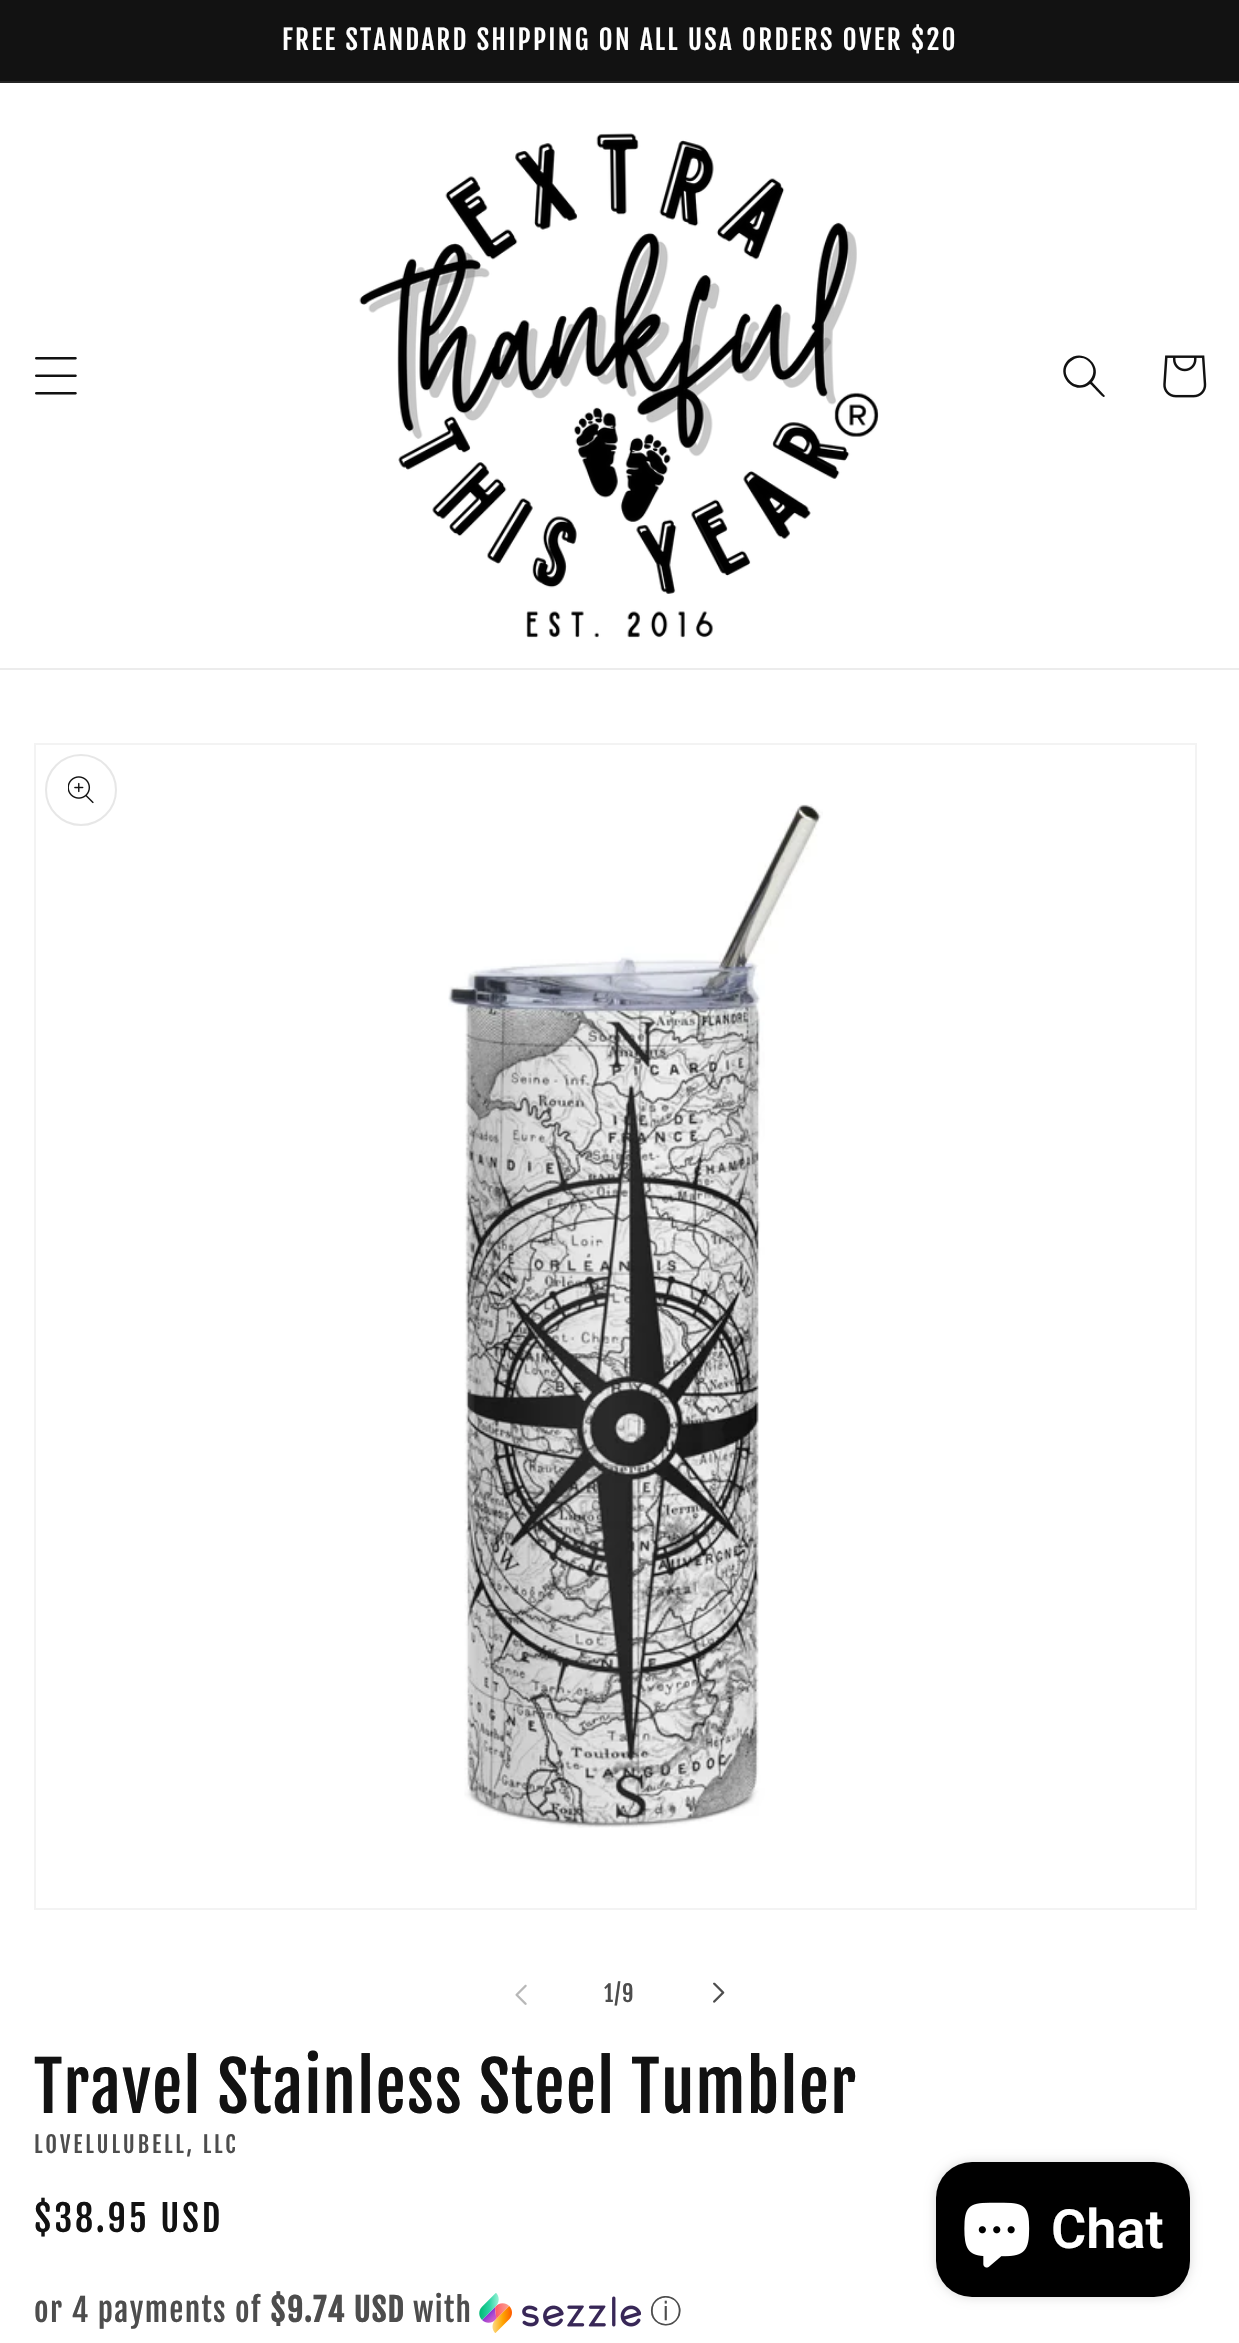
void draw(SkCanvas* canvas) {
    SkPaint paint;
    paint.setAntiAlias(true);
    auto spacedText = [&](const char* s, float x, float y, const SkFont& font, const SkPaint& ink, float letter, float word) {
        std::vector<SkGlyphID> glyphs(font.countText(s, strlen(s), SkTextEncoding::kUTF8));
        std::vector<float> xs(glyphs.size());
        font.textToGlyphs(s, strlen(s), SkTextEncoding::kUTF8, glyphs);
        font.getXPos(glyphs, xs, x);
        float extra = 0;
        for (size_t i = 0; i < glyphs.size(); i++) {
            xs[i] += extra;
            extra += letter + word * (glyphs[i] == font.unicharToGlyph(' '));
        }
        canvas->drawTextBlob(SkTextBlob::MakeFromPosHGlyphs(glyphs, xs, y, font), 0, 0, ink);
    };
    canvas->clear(0xFFFFFFFF);
    paint.setColor(0xFF121212);
    canvas->drawRect(SkRect::MakeXYWH(0, 0, 1239, 81), paint);
    paint.setColor(0xFF252525);
    canvas->drawRect(SkRect::MakeXYWH(0, 81, 1239, 2), paint);
    SkFont font1(fontMgr->matchFamilyStyle("Fjalla One", SkFontStyle::Normal()), 27);
    font1.setSubpixel(true);
    paint.setColor(0xFFFFFFFF);
    spacedText("FREE STANDARD SHIPPING ON ALL USA ORDERS OVER $20", 282, 50, font1, paint, 2.25f, 0);
    paint.setColor(0xFFECECEC);
    canvas->drawRect(SkRect::MakeXYWH(0, 668, 1239, 2), paint);
    canvas->drawImageRect(SkImages::DeferredFromEncodedData(SkData::MakeFromFileName("img1.png")), SkRect::MakeXYWH(35, 357, 42, 38), SkSamplingOptions());
    canvas->drawImageRect(SkImages::DeferredFromEncodedData(SkData::MakeFromFileName("img2.png")), SkRect::MakeXYWH(359, 133, 520, 505), SkSamplingOptions());
    paint.setColor(0xFF121212);
    canvas->drawPath(SkPathBuilder(SkPathFillType::kEvenOdd).moveTo(1089, 381).cubicTo(1077, 394, 1057, 374, 1070, 362).cubicTo(1083, 349, 1102, 368, 1089, 381).close().moveTo(1090, 384).cubicTo(1074, 397, 1054, 374, 1068, 360).cubicTo(1083, 346, 1105, 367, 1092, 382).lineTo(1105, 396).lineTo(1104, 397).cubicTo(1103, 398, 1092, 385, 1090, 384).close().detach(), paint);
    canvas->drawImageRect(SkImages::DeferredFromEncodedData(SkData::MakeFromFileName("img3.png")), SkRect::MakeXYWH(1163, 355, 44, 43), SkSamplingOptions());
    paint.setStyle(SkPaint::kStroke_Style);
    paint.setStrokeWidth(2);
    paint.setColor(0xFFF3F3F3);
    canvas->drawRect(SkRect::MakeXYWH(35, 744, 1161, 1165), paint);
    canvas->drawImageRect(SkImages::DeferredFromEncodedData(SkData::MakeFromFileName("img4.png")), SkRect::MakeXYWH(448, 804, 375, 1024), SkSamplingOptions());
    paint.setColor(0xFFE7E7E7);
    canvas->drawCircle(81, 790, 35, paint);
    canvas->drawImageRect(SkImages::DeferredFromEncodedData(SkData::MakeFromFileName("img5.png")), SkRect::MakeXYWH(68, 776, 26, 28), SkSamplingOptions());
    canvas->drawImageRect(SkImages::DeferredFromEncodedData(SkData::MakeFromFileName("img6.png")), SkRect::MakeXYWH(515, 1984, 12, 21), SkSamplingOptions());
    SkFont font2(fontMgr->matchFamilyStyle("Fjalla One", SkFontStyle::Normal()), 22.5f);
    font2.setSubpixel(true);
    paint.setStyle(SkPaint::kFill_Style);
    paint.setColor(0xFF4D4D4D);
    spacedText("1/9", 604, 2002, font2, paint, 1.5f, 0);
    canvas->drawImageRect(SkImages::DeferredFromEncodedData(SkData::MakeFromFileName("img7.png")), SkRect::MakeXYWH(713, 1982, 12, 21), SkSamplingOptions());
    SkFont font3(fontMgr->matchFamilyStyle("Fjalla One", SkFontStyle::Normal()), 67.5f);
    font3.setSubpixel(true);
    paint.setColor(0xFF121212);
    spacedText("Travel Stainless Steel Tumbler", 34, 2113, font3, paint, 1.35f, 0);
    paint.setColor(0xFF4D4D4D);
    spacedText("LOVELULUBELL, LLC", 34, 2153, font2, paint, 2.9f, 0);
    SkFont font4(fontMgr->matchFamilyStyle("Fjalla One", SkFontStyle::Normal()), 36);
    font4.setSubpixel(true);
    paint.setColor(0xFF121212);
    spacedText("$38.95 USD", 34, 2232, font4, paint, 2.9f, 0);
    SkFont font5(fontMgr->matchFamilyStyle("Fjalla One", SkFontStyle::Normal()), 31.5f);
    font5.setSubpixel(true);
    paint.setColor(0xFF4D4D4D);
    spacedText("or 4 payments of", 34, 2322, font5, paint, 1.35f, 0);
    SkFont font6(fontMgr->matchFamilyStyle("Fjalla One", SkFontStyle::Bold()), 31.5f);
    font6.setSubpixel(true);
    spacedText("$9.74 USD", 270, 2322, font6, paint, 1.35f, 0);
    spacedText("with", 413, 2322, font5, paint, 1.35f, 0);
    canvas->drawImageRect(SkImages::DeferredFromEncodedData(SkData::MakeFromFileName("img8.png")), SkRect::MakeXYWH(479, 2293, 162, 40), SkSamplingOptions());
    SkFont font7(fontMgr->matchFamilyStyle("WenQuanYi Zen Hei", SkFontStyle(500, SkFontStyle::kNormal_Width, SkFontStyle::kUpright_Slant)), 31.5f);
    font7.setSubpixel(true);
    spacedText("ⓘ", 650, 2322, font7, paint, 1.35f, 0);
    paint.setColor(0x26000000);
    paint.setMaskFilter(SkMaskFilter::MakeBlur(kNormal_SkBlurStyle, 5.5f));
    canvas->drawRoundRect(SkRect::MakeXYWH(936, 2162, 254, 135), 36, 36, paint);
    paint.setMaskFilter(nullptr);
    paint.setColor(0xFF000000);
    canvas->drawRoundRect(SkRect::MakeXYWH(936, 2162, 254, 135), 36, 36, paint);
    canvas->drawImageRect(SkImages::DeferredFromEncodedData(SkData::MakeFromFileName("img9.png")), SkRect::MakeXYWH(964, 2202, 66, 66), SkSamplingOptions());
    SkFont font8(fontMgr->matchFamilyStyle("Roboto", SkFontStyle(600, SkFontStyle::kNormal_Width, SkFontStyle::kUpright_Slant)), 54);
    font8.setSubpixel(true);
    paint.setColor(0xFFFFFFFF);
    canvas->drawString("Chat", 1051, 2248, font8, paint);
}
